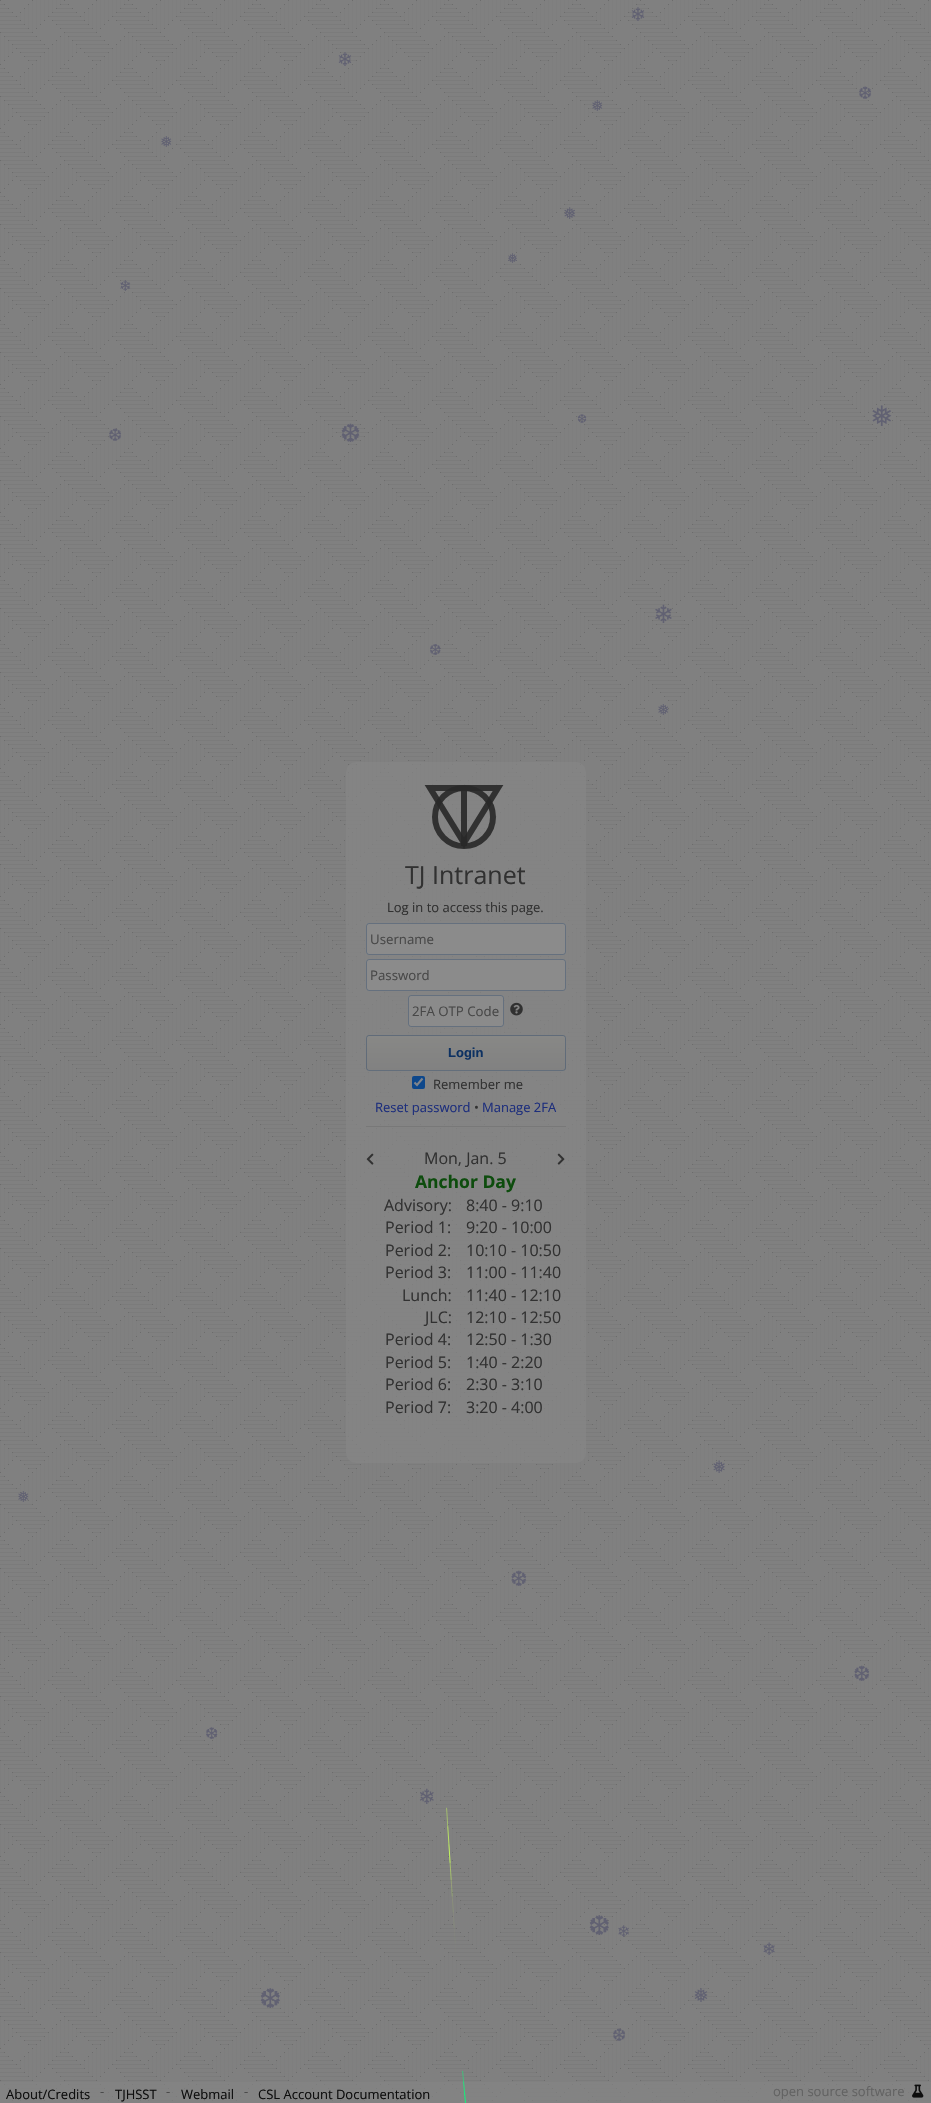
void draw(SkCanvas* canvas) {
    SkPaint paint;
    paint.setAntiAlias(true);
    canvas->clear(0xFFFFFFFF);
    canvas->drawImageRect(SkImages::DeferredFromEncodedData(SkData::MakeFromFileName("img1.png")), SkRect::MakeXYWH(0, 0, 931, 2103), SkSamplingOptions());
    SkFont font1(fontMgr->matchFamilyStyle("DejaVu Sans", SkFontStyle::Normal()), 19);
    font1.setSubpixel(true);
    paint.setColor(0xFF616172);
    canvas->drawString("❄", 630, 21, font1, paint);
    canvas->drawString("❄", 337, 66, font1, paint);
    SkFont font2(fontMgr->matchFamilyStyle("DejaVu Sans", SkFontStyle::Normal()), 17);
    font2.setSubpixel(true);
    canvas->drawString("❆", 858, 99, font2, paint);
    SkFont font3(fontMgr->matchFamilyStyle("DejaVu Sans", SkFontStyle::Normal()), 15);
    font3.setSubpixel(true);
    canvas->drawString("❅", 591, 111, font3, paint);
    canvas->drawString("❅", 160, 147, font3, paint);
    SkFont font4(fontMgr->matchFamilyStyle("DejaVu Sans", SkFontStyle::Normal()), 16);
    font4.setSubpixel(true);
    canvas->drawString("❅", 563, 219, font4, paint);
    SkFont font5(fontMgr->matchFamilyStyle("DejaVu Sans", SkFontStyle::Normal()), 13.25f);
    font5.setSubpixel(true);
    canvas->drawString("❅", 507, 263, font5, paint);
    canvas->drawString("❄", 119, 291, font3, paint);
    SkFont font6(fontMgr->matchFamilyStyle("DejaVu Sans", SkFontStyle::Normal()), 12);
    font6.setSubpixel(true);
    canvas->drawString("❆", 577, 423, font6, paint);
    SkFont font7(fontMgr->matchFamilyStyle("DejaVu Sans", SkFontStyle::Normal()), 28);
    font7.setSubpixel(true);
    canvas->drawString("❅", 870, 426, font7, paint);
    canvas->drawString("❆", 108, 441, font2, paint);
    SkFont font8(fontMgr->matchFamilyStyle("DejaVu Sans", SkFontStyle::Normal()), 25);
    font8.setSubpixel(true);
    canvas->drawString("❆", 340, 442, font8, paint);
    canvas->drawString("❄", 653, 623, font8, paint);
    canvas->drawString("❆", 429, 655, font3, paint);
    canvas->drawString("❅", 657, 715, font3, paint);
    canvas->drawString("❅", 712, 1473, font2, paint);
    canvas->drawString("❅", 17, 1502, font3, paint);
    SkFont font9(fontMgr->matchFamilyStyle("DejaVu Sans", SkFontStyle::Normal()), 21);
    font9.setSubpixel(true);
    canvas->drawString("❆", 510, 1586, font9, paint);
    canvas->drawString("❆", 853, 1681, font9, paint);
    canvas->drawString("❆", 205, 1739, font4, paint);
    canvas->drawString("❄", 418, 1804, font9, paint);
    SkFont font10(fontMgr->matchFamilyStyle("DejaVu Sans", SkFontStyle::Normal()), 27);
    font10.setSubpixel(true);
    canvas->drawString("❆", 588, 1935, font10, paint);
    canvas->drawString("❄", 617, 1937, font4, paint);
    canvas->drawString("❄", 762, 1955, font2, paint);
    canvas->drawString("❆", 259, 2008, font10, paint);
    canvas->drawString("❅", 693, 2002, font1, paint);
    canvas->drawString("❆", 612, 2041, font2, paint);
    paint.setColor(0xB8858585);
    canvas->drawRoundRect(SkRect::MakeXYWH(346, 762, 240, 701), 10, 10, paint);
    paint.setColor(0xFF787878);
    canvas->drawRect(SkRect::MakeXYWH(366, 1126, 200, 1), paint);
    paint.setStyle(SkPaint::kStroke_Style);
    paint.setStrokeWidth(6);
    paint.setColor(0xE6282828);
    canvas->drawCircle(464, 817, 29, paint);
    paint.setStyle(SkPaint::kFill_Style);
    canvas->drawRect(SkRect::MakeXYWH(461, 788, 6, 58), paint);
    paint.setStyle(SkPaint::kStroke_Style);
    canvas->drawPath(SkPathBuilder().moveTo(464, 843).lineTo(498, 788).lineTo(430, 788).close().detach(), paint);
    SkFont font11(fontMgr->matchFamilyStyle("Open Sans", SkFontStyle::Normal()), 25);
    font11.setSubpixel(true);
    paint.setStyle(SkPaint::kFill_Style);
    paint.setColor(0xFF313131);
    canvas->drawString("TJ Intranet", 405, 884, font11, paint);
    SkFont font12(fontMgr->matchFamilyStyle("Open Sans", SkFontStyle::Normal()), 13);
    font12.setSubpixel(true);
    canvas->drawString("Log in to access this page.", 387, 912, font12, paint);
    paint.setColor(0xE68C8C8C);
    canvas->drawRoundRect(SkRect::MakeXYWH(366, 923, 200, 32), 3, 3, paint);
    paint.setStyle(SkPaint::kStroke_Style);
    paint.setStrokeWidth(1);
    paint.setColor(0x4500285E);
    canvas->drawRoundRect(SkRect::MakeXYWH(366.5f, 923.5f, 199, 31), 2.5f, 2.5f, paint);
    SkFont font13(fontMgr->matchFamilyStyle("Open Sans", SkFontStyle::Normal()), 13.25f);
    font13.setSubpixel(true);
    paint.setStyle(SkPaint::kFill_Style);
    paint.setColor(0xFF484848);
    canvas->drawString("Username", 370, 944, font13, paint);
    paint.setColor(0xE68C8C8C);
    canvas->drawRoundRect(SkRect::MakeXYWH(366, 959, 200, 32), 3, 3, paint);
    paint.setStyle(SkPaint::kStroke_Style);
    paint.setColor(0x4500285E);
    canvas->drawRoundRect(SkRect::MakeXYWH(366.5f, 959.5f, 199, 31), 2.5f, 2.5f, paint);
    paint.setStyle(SkPaint::kFill_Style);
    paint.setColor(0xFF484848);
    canvas->drawString("Password", 370, 980, font13, paint);
    paint.setColor(0xE68C8C8C);
    canvas->drawRoundRect(SkRect::MakeXYWH(408, 995, 96, 32), 3, 3, paint);
    paint.setStyle(SkPaint::kStroke_Style);
    paint.setColor(0x4500285E);
    canvas->drawRoundRect(SkRect::MakeXYWH(408.5f, 995.5f, 95, 31), 2.5f, 2.5f, paint);
    paint.setStyle(SkPaint::kFill_Style);
    paint.setColor(0xFF484848);
    canvas->drawString("2FA OTP Code", 412, 1016, font13, paint);
    canvas->drawImageRect(SkImages::DeferredFromEncodedData(SkData::MakeFromFileName("img2.png")), SkRect::MakeXYWH(510, 1002, 13, 14), SkSamplingOptions());
    canvas->save();
    canvas->clipPath(SkPathBuilder().moveTo(369, 1035).lineTo(563, 1035).cubicTo(564.5f, 1035, 566, 1036.5f, 566, 1038).lineTo(566, 1068).cubicTo(566, 1069.5f, 564.5f, 1071, 563, 1071).lineTo(369, 1071).cubicTo(367.5f, 1071, 366, 1069.5f, 366, 1068).lineTo(366, 1038).cubicTo(366, 1036.5f, 367.5f, 1035, 369, 1035).close().detach(), true);
    {
        const SkColor colors[] = {0xE6888886, 0xE6818181};
        const float stops[] = {0, 1};
        const SkPoint ends[] = {{466, 1036}, {466, 1070}};
        paint.setShader(SkGradientShader::MakeLinear(ends, colors, stops, 2, SkTileMode::kClamp));
        paint.setAlpha(255);
    }
    canvas->drawRect(SkRect::MakeXYWH(366, 1036, 200, 34), paint);
    {
        const SkColor colors[] = {0xE6888886, 0xE6818181};
        const float stops[] = {0, 1};
        const SkPoint ends[] = {{466, 1070}, {466, 1104}};
        paint.setShader(SkGradientShader::MakeLinear(ends, colors, stops, 2, SkTileMode::kClamp));
        paint.setAlpha(255);
    }
    canvas->drawRect(SkRect::MakeXYWH(366, 1070, 200, 1), paint);
    canvas->restore();
    paint.setStyle(SkPaint::kStroke_Style);
    paint.setShader(nullptr);
    paint.setColor(0x4500285E);
    canvas->drawRoundRect(SkRect::MakeXYWH(366.5f, 1035.5f, 199, 35), 2.5f, 2.5f, paint);
    SkFont font14(fontMgr->matchFamilyStyle("Liberation Sans", SkFontStyle::Bold()), 13);
    font14.setSubpixel(true);
    paint.setStyle(SkPaint::kFill_Style);
    paint.setColor(0xFF0D3162);
    canvas->drawString("Login", 448, 1057, font14, paint);
    paint.setColor(0xE600408C);
    canvas->drawRoundRect(SkRect::MakeXYWH(412, 1076, 13, 13), 2, 2, paint);
    paint.setStyle(SkPaint::kStroke_Style);
    paint.setStrokeWidth(2.1f);
    paint.setColor(0xFF80858C);
    canvas->drawPath(SkPathBuilder().moveTo(414.5f, 1082.5f).lineTo(417, 1085).lineTo(422.5f, 1078.5f).detach(), paint);
    paint.setStyle(SkPaint::kFill_Style);
    paint.setColor(0xFF313131);
    canvas->drawString("Remember me", 433, 1089, font12, paint);
    paint.setColor(0xFF1D2E7C);
    canvas->drawString("Reset password", 375, 1112, font12, paint);
    paint.setColor(0xFF313131);
    canvas->drawString("•", 474, 1112, font12, paint);
    paint.setColor(0xFF1D2E7C);
    canvas->drawString("Manage 2FA", 482, 1112, font12, paint);
    canvas->drawImageRect(SkImages::DeferredFromEncodedData(SkData::MakeFromFileName("img3.png")), SkRect::MakeXYWH(366, 1153, 8, 12), SkSamplingOptions());
    SkFont font15(fontMgr->matchFamilyStyle("Open Sans", SkFontStyle::Normal()), 16);
    font15.setSubpixel(true);
    paint.setColor(0xFF313131);
    canvas->drawString("Mon, Jan. 5", 424, 1164, font15, paint);
    canvas->drawImageRect(SkImages::DeferredFromEncodedData(SkData::MakeFromFileName("img4.png")), SkRect::MakeXYWH(557, 1153, 8, 12), SkSamplingOptions());
    SkFont font16(fontMgr->matchFamilyStyle("Open Sans", SkFontStyle::Bold()), 17.5f);
    font16.setSubpixel(true);
    paint.setColor(0xFF0D4C0D);
    canvas->drawString("Anchor Day", 415, 1188, font16, paint);
    paint.setColor(0xFF313131);
    canvas->drawString("Advisory:", 384, 1211, font15, paint);
    canvas->drawString("8:40 - 9:10", 466, 1211, font15, paint);
    canvas->drawString("Period 1:", 385, 1233, font15, paint);
    canvas->drawString("9:20 - 10:00", 466, 1233, font15, paint);
    canvas->drawString("Period 2:", 385, 1256, font15, paint);
    canvas->drawString("10:10 - 10:50", 466, 1256, font15, paint);
    canvas->drawString("Period 3:", 385, 1278, font15, paint);
    canvas->drawString("11:00 - 11:40", 466, 1278, font15, paint);
    canvas->drawString("Lunch:", 402, 1301, font15, paint);
    canvas->drawString("11:40 - 12:10", 466, 1301, font15, paint);
    canvas->drawString("JLC:", 425, 1323, font15, paint);
    canvas->drawString("12:10 - 12:50", 466, 1323, font15, paint);
    canvas->drawString("Period 4:", 385, 1345, font15, paint);
    canvas->drawString("12:50 - 1:30", 466, 1345, font15, paint);
    canvas->drawString("Period 5:", 385, 1368, font15, paint);
    canvas->drawString("1:40 - 2:20", 466, 1368, font15, paint);
    canvas->drawString("Period 6:", 385, 1390, font15, paint);
    canvas->drawString("2:30 - 3:10", 466, 1390, font15, paint);
    canvas->drawString("Period 7:", 385, 1413, font15, paint);
    canvas->drawString("3:20 - 4:00", 466, 1413, font15, paint);
    paint.setColor(0xA1858585);
    canvas->drawRect(SkRect::MakeXYWH(0, 2082, 931, 21), paint);
    canvas->drawImageRect(SkImages::DeferredFromEncodedData(SkData::MakeFromFileName("img5.png")), SkRect::MakeXYWH(446, 1807, 20, 296), SkSamplingOptions());
    paint.setColor(0xFF0D0D0D);
    canvas->drawString("About/Credits", 6, 2099, font12, paint);
    paint.setColor(0xFF484848);
    canvas->drawString("-", 100, 2096, font12, paint);
    paint.setColor(0xFF0D0D0D);
    canvas->drawString("TJHSST", 115, 2099, font12, paint);
    paint.setColor(0xFF484848);
    canvas->drawString("-", 166, 2096, font12, paint);
    paint.setColor(0xFF0D0D0D);
    canvas->drawString("Webmail", 181, 2099, font12, paint);
    paint.setColor(0xFF484848);
    canvas->drawString("-", 244, 2096, font12, paint);
    paint.setColor(0xFF0D0D0D);
    canvas->drawString("CSL Account Documentation", 258, 2099, font12, paint);
    paint.setColor(0xFF626262);
    canvas->drawString("open source software", 773, 2096, font12, paint);
    canvas->drawImageRect(SkImages::DeferredFromEncodedData(SkData::MakeFromFileName("img6.png")), SkRect::MakeXYWH(912, 2084, 12, 14), SkSamplingOptions());
}
